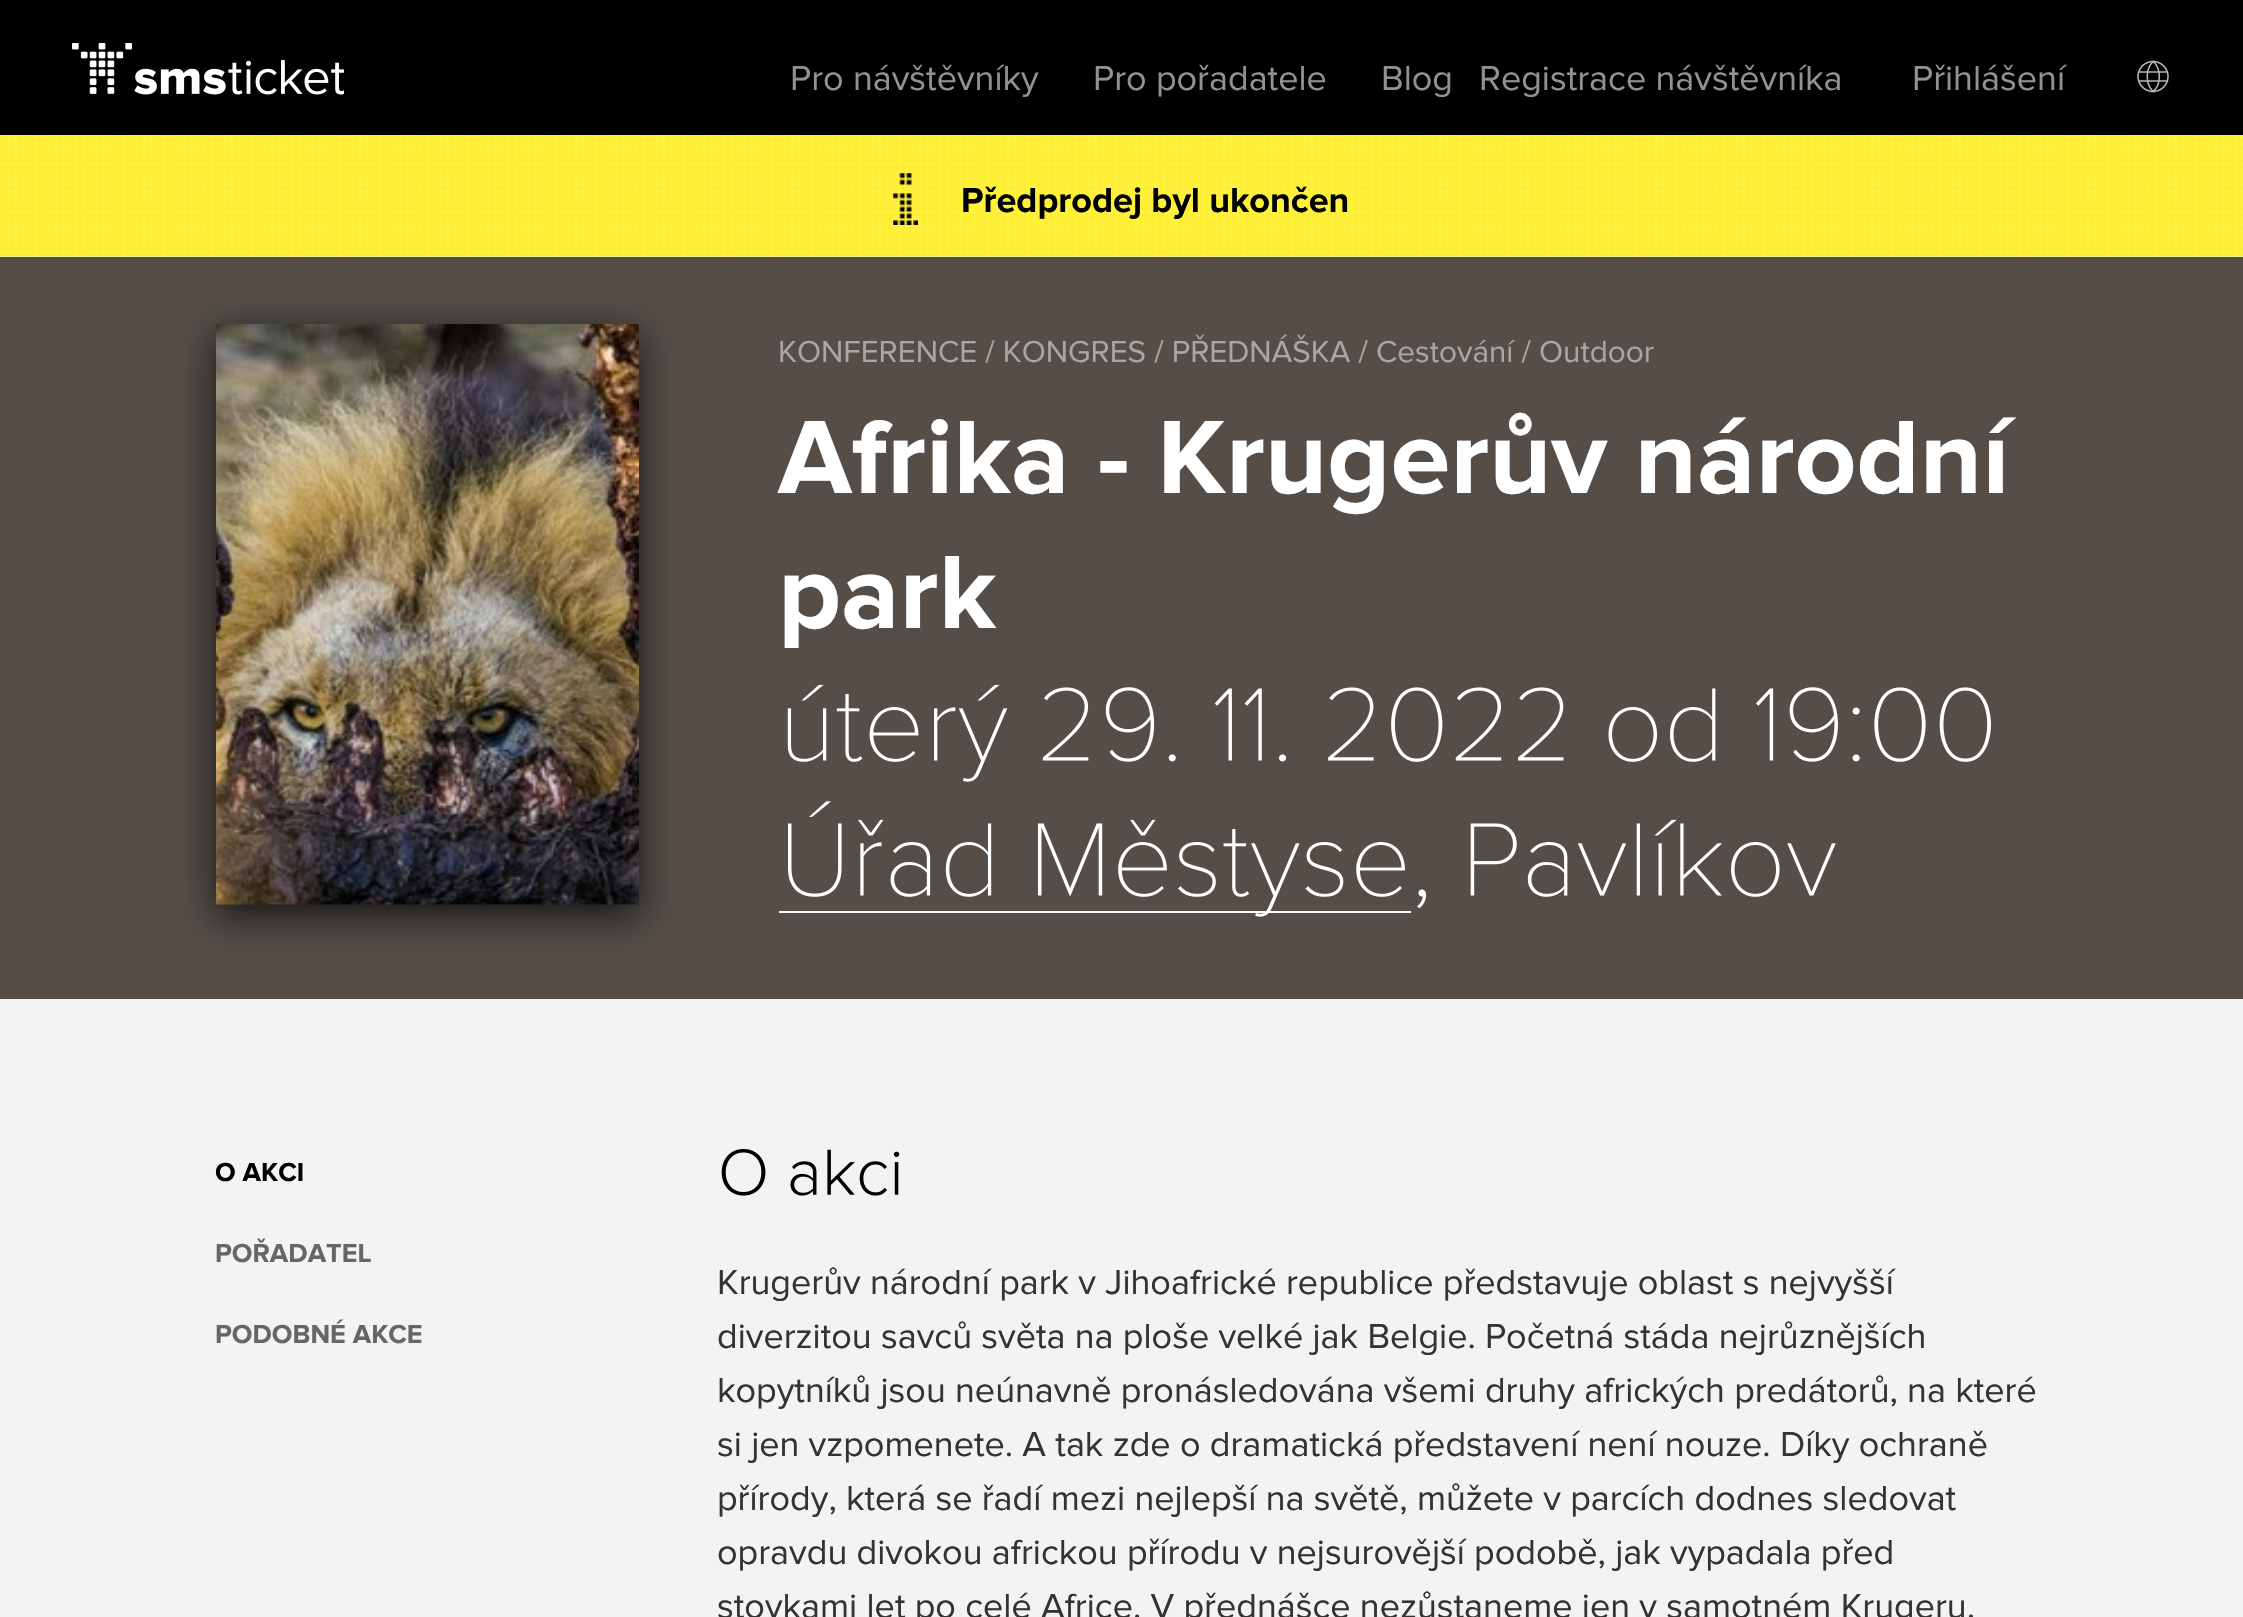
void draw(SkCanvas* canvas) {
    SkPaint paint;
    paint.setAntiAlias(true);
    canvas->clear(0xFFF3F3F3);
    paint.setColor(0xFF000000);
    canvas->drawRect(SkRect::MakeXYWH(0, 0, 2243, 135), paint);
    canvas->drawImageRect(SkImages::DeferredFromEncodedData(SkData::MakeFromFileName("img1.png")), SkRect::MakeXYWH(72, 43, 272, 52), SkSamplingOptions());
    SkFont font1(fontMgr->matchFamilyStyle("Proxima Nova", SkFontStyle::Normal()), 36);
    font1.setSubpixel(true);
    paint.setColor(0xFF929292);
    canvas->drawString("Pro návštěvníky", 790, 90, font1, paint);
    canvas->drawString("Pro pořadatele", 1093, 90, font1, paint);
    canvas->drawString("Blog", 1381, 90, font1, paint);
    canvas->drawString("Registrace návštěvníka", 1479, 90, font1, paint);
    canvas->drawString("Přihlášení", 1912, 90, font1, paint);
    canvas->drawImageRect(SkImages::DeferredFromEncodedData(SkData::MakeFromFileName("img2.png")), SkRect::MakeXYWH(2137, 60, 32, 33), SkSamplingOptions());
    canvas->drawImageRect(SkImages::DeferredFromEncodedData(SkData::MakeFromFileName("img3.png")), SkRect::MakeXYWH(0, 135, 2243, 122), SkSamplingOptions());
    canvas->drawImageRect(SkImages::DeferredFromEncodedData(SkData::MakeFromFileName("img4.png")), SkRect::MakeXYWH(893, 173, 25, 52), SkSamplingOptions());
    SkFont font2(fontMgr->matchFamilyStyle("Proxima Nova", SkFontStyle::Bold()), 36);
    font2.setSubpixel(true);
    paint.setColor(0xFF000000);
    canvas->drawString("Předprodej byl ukončen", 961, 212, font2, paint);
    paint.setColor(0xFF544D48);
    canvas->drawRect(SkRect::MakeXYWH(0, 257, 2243, 742), paint);
    paint.setColor(0xBD000000);
    paint.setMaskFilter(SkMaskFilter::MakeBlur(kNormal_SkBlurStyle, 18));
    canvas->drawRect(SkRect::MakeXYWH(216, 335, 423, 581), paint);
    paint.setMaskFilter(nullptr);
    canvas->drawImageRect(SkImages::DeferredFromEncodedData(SkData::MakeFromFileName("img5.png")), SkRect::MakeXYWH(216, 324, 423, 581), SkSamplingOptions());
    SkFont font3(fontMgr->matchFamilyStyle("Proxima Nova", SkFontStyle::Normal()), 31.5f);
    font3.setSubpixel(true);
    paint.setColor(0xFFAAA6A4);
    canvas->drawString("KONFERENCE / KONGRES / PŘEDNÁŠKA / Cestování / Outdoor", 778, 362, font3, paint);
    SkFont font4(fontMgr->matchFamilyStyle("Proxima Nova", SkFontStyle::Bold()), 108);
    font4.setSubpixel(true);
    paint.setColor(0xFFFFFFFF);
    canvas->drawString("Afrika - Krugerův národní", 778, 493, font4, paint);
    canvas->drawString("park", 778, 628, font4, paint);
    canvas->drawImageRect(SkImages::DeferredFromEncodedData(SkData::MakeFromFileName("img6.png")), SkRect::MakeXYWH(787, 684, 1204, 98), SkSamplingOptions());
    canvas->drawRect(SkRect::MakeXYWH(779, 911, 632, 2), paint);
    canvas->drawImageRect(SkImages::DeferredFromEncodedData(SkData::MakeFromFileName("img7.png")), SkRect::MakeXYWH(788, 801, 617, 116), SkSamplingOptions());
    canvas->drawImageRect(SkImages::DeferredFromEncodedData(SkData::MakeFromFileName("img8.png")), SkRect::MakeXYWH(1417, 819, 419, 90), SkSamplingOptions());
    SkFont font5(fontMgr->matchFamilyStyle("Proxima Nova", SkFontStyle::Bold()), 27);
    font5.setSubpixel(true);
    paint.setColor(0xFF000000);
    canvas->drawString("O AKCI", 215, 1181, font5, paint);
    paint.setColor(0xFF666666);
    canvas->drawString("POŘADATEL", 215, 1262, font5, paint);
    canvas->drawString("PODOBNÉ AKCE", 215, 1343, font5, paint);
    canvas->drawImageRect(SkImages::DeferredFromEncodedData(SkData::MakeFromFileName("img9.png")), SkRect::MakeXYWH(721, 1149, 179, 47), SkSamplingOptions());
    paint.setColor(0xFF333333);
    canvas->drawString("Krugerův národní park v Jihoafrické republice představuje oblast s nejvyšší", 717, 1294, font1, paint);
    canvas->drawString("diverzitou savců světa na ploše velké jak Belgie. Početná stáda nejrůznějších", 717, 1348, font1, paint);
    canvas->drawString("kopytníků jsou neúnavně pronásledována všemi druhy afrických predátorů, na které", 717, 1402, font1, paint);
    canvas->drawString("si jen vzpomenete. A tak zde o dramatická představení není nouze. Díky ochraně", 717, 1456, font1, paint);
    canvas->drawString("přírody, která se řadí mezi nejlepší na světě, můžete v parcích dodnes sledovat", 717, 1510, font1, paint);
    canvas->drawString("opravdu divokou africkou přírodu v nejsurovější podobě, jak vypadala před", 717, 1564, font1, paint);
    canvas->drawString("stovkami let po celé Africe. V přednášce nezůstaneme jen v samotném Krugeru,", 717, 1618, font1, paint);
}
